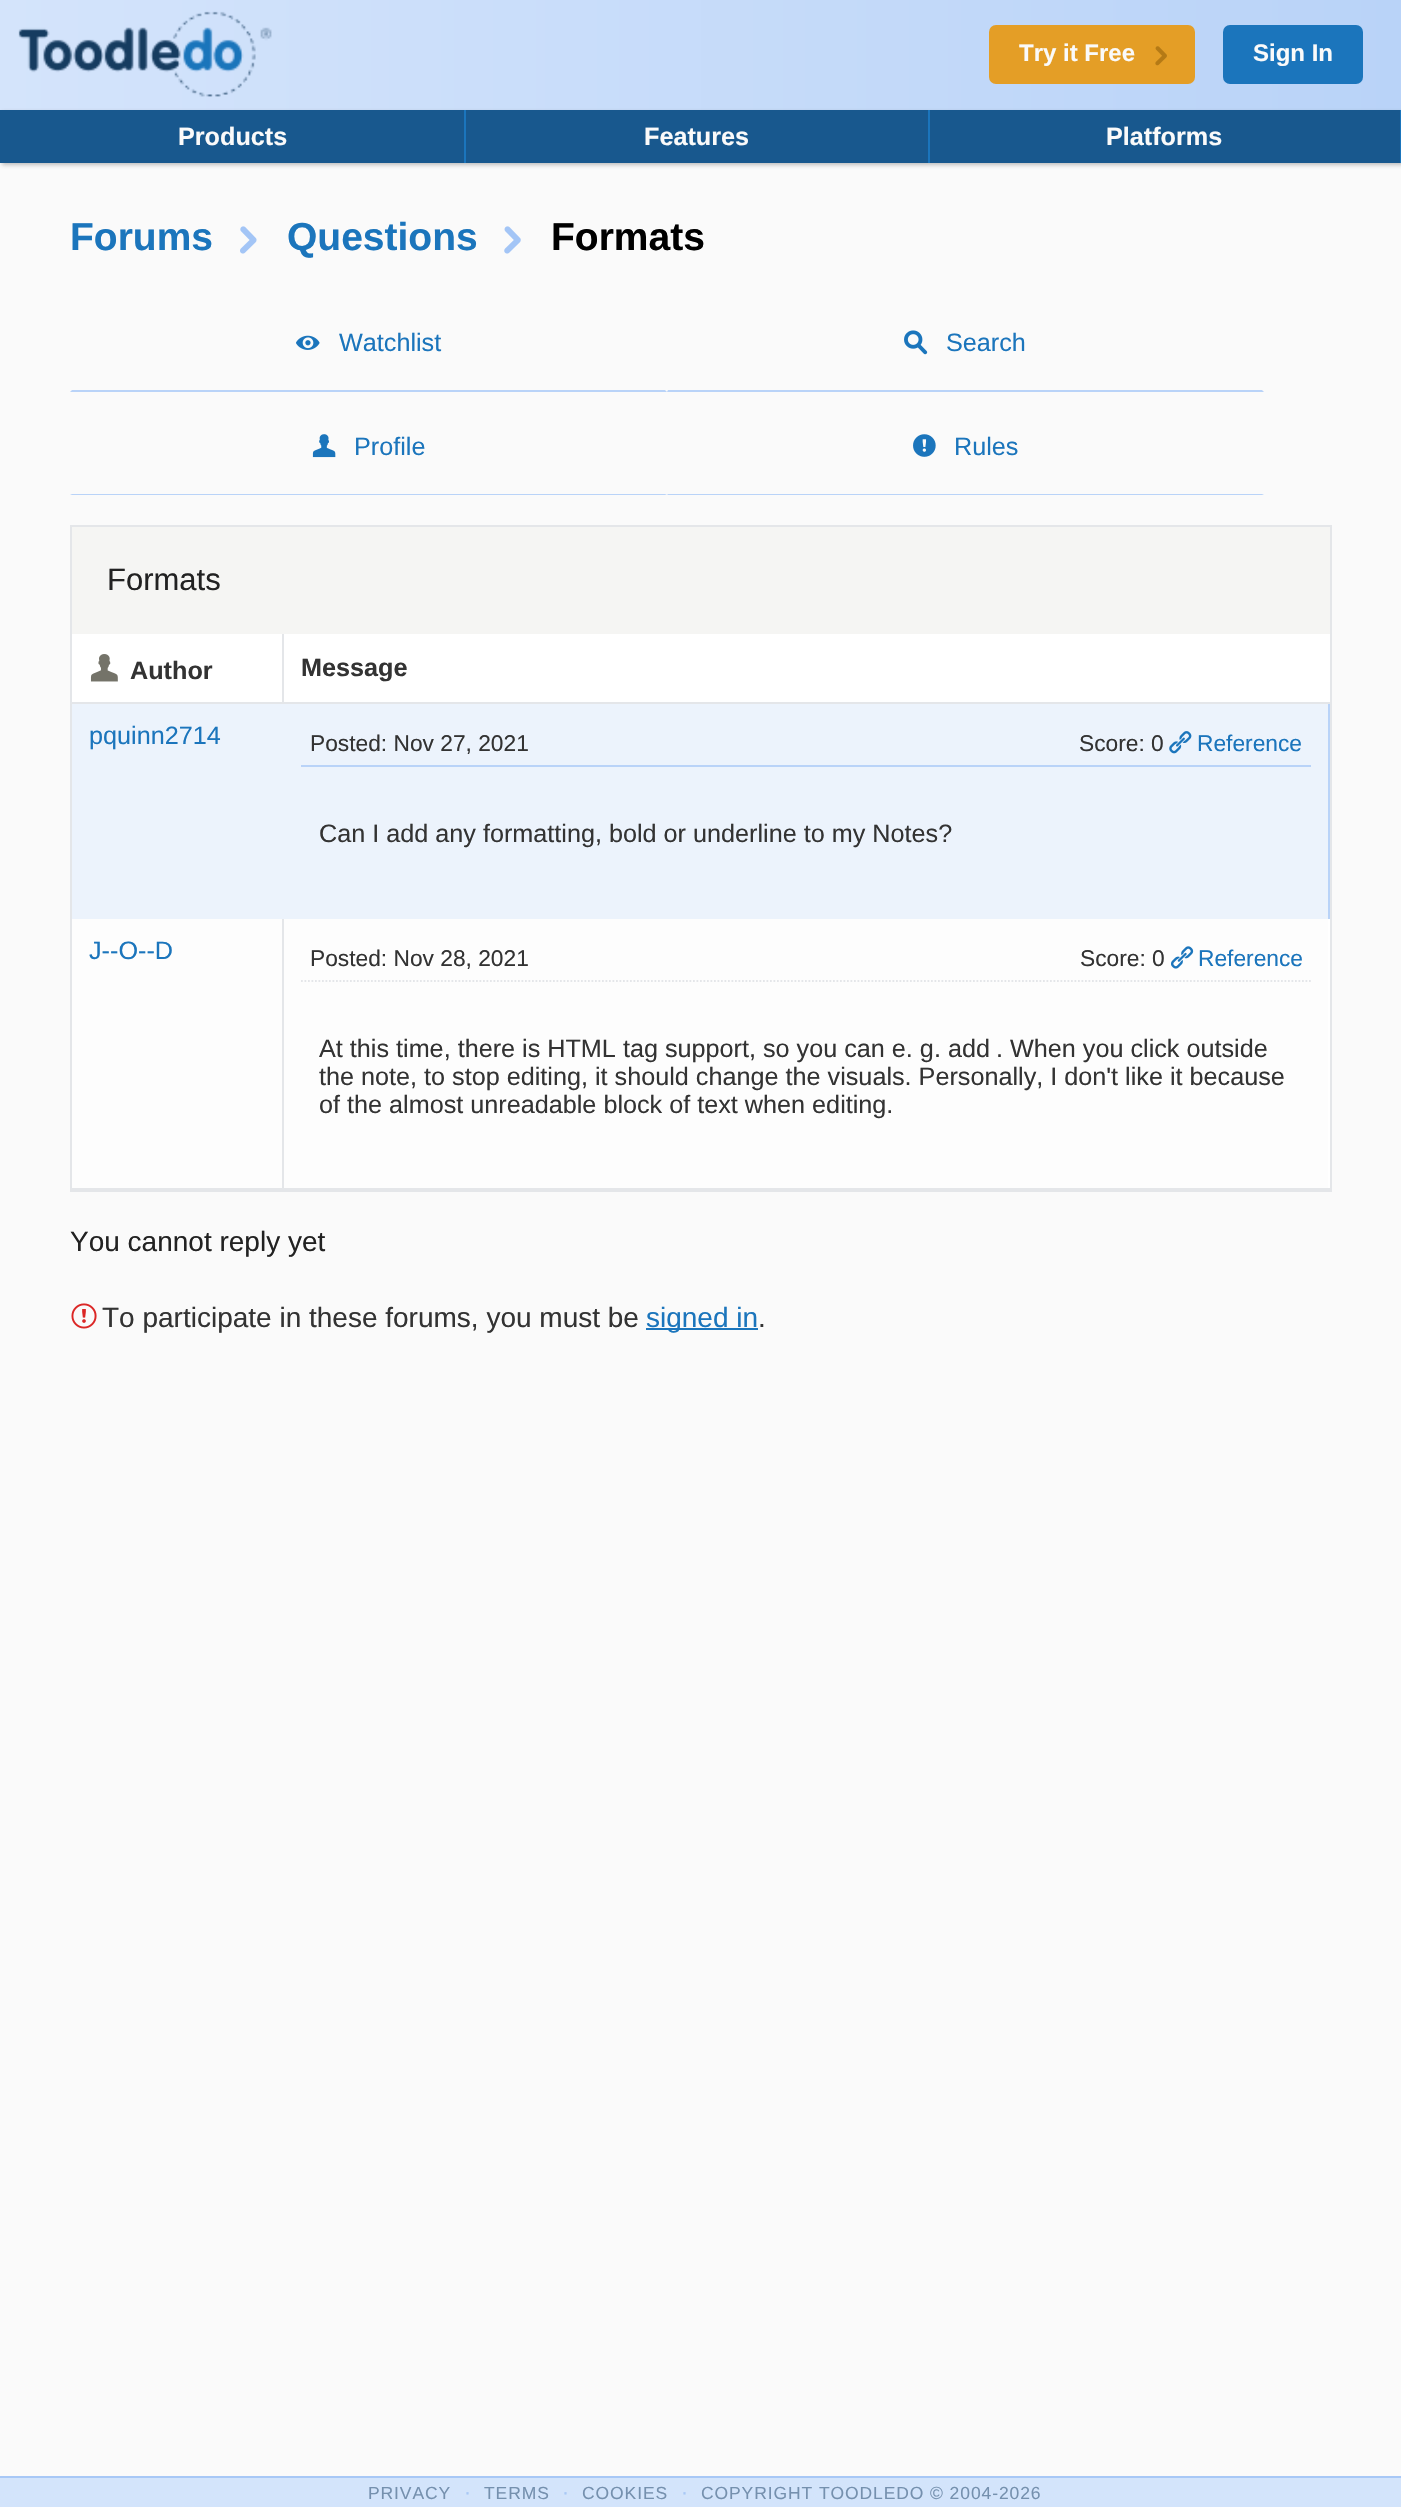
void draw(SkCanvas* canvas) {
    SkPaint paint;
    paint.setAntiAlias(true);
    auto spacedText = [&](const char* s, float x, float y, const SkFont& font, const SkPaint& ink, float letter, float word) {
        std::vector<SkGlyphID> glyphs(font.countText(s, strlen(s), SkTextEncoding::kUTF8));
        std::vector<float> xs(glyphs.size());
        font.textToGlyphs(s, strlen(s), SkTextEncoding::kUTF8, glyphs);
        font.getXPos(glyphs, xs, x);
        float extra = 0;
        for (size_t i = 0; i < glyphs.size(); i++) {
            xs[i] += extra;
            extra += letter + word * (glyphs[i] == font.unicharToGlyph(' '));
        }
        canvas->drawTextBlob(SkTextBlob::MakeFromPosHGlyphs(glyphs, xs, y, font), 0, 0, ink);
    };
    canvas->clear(0xFFFAFAFA);
    {
        const SkColor colors[] = {0xFFD4E4FB, 0xFFB9D3F8};
        const float stops[] = {0, 1};
        const SkPoint ends[] = {{0, 55}, {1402, 55}};
        paint.setShader(SkGradientShader::MakeLinear(ends, colors, stops, 2, SkTileMode::kClamp));
        paint.setAlpha(255);
    }
    canvas->drawRect(SkRect::MakeXYWH(0, 0, 1401, 110), paint);
    canvas->drawImageRect(SkImages::DeferredFromEncodedData(SkData::MakeFromFileName("img1.png")), SkRect::MakeXYWH(18, 11, 254, 86), SkSamplingOptions());
    paint.setShader(nullptr);
    paint.setColor(0xFFE49E26);
    canvas->drawRoundRect(SkRect::MakeXYWH(989, 25, 206, 59), 7, 7, paint);
    SkFont font1(fontMgr->matchFamilyStyle("Liberation Sans", SkFontStyle::Bold()), 24);
    font1.setSubpixel(true);
    paint.setColor(0xFFFAFAFA);
    canvas->drawString("Try it Free", 1019, 61, font1, paint);
    canvas->drawImageRect(SkImages::DeferredFromEncodedData(SkData::MakeFromFileName("img2.png")), SkRect::MakeXYWH(1155, 46, 12, 20), SkSamplingOptions());
    paint.setColor(0xFF1B75BC);
    canvas->drawRoundRect(SkRect::MakeXYWH(1223, 25, 140, 59), 7, 7, paint);
    paint.setColor(0xFFFAFAFA);
    canvas->drawString("Sign In", 1253, 61, font1, paint);
    paint.setColor(0x4D323232);
    paint.setMaskFilter(SkMaskFilter::MakeBlur(kNormal_SkBlurStyle, 2));
    canvas->drawRect(SkRect::MakeXYWH(2, 112, 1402, 53), paint);
    paint.setMaskFilter(nullptr);
    paint.setColor(0xFF18588E);
    canvas->drawRect(SkRect::MakeXYWH(0, 110, 1400, 53), paint);
    paint.setColor(0xFF1B75BC);
    canvas->drawRect(SkRect::MakeXYWH(464, 110, 2, 53), paint);
    SkFont font2(fontMgr->matchFamilyStyle("Liberation Sans", SkFontStyle::Bold()), 25.2f);
    font2.setSubpixel(true);
    paint.setColor(0xFFFAFAFA);
    canvas->drawString("Products", 178, 145, font2, paint);
    paint.setColor(0xFF1B75BC);
    canvas->drawRect(SkRect::MakeXYWH(928, 110, 2, 53), paint);
    paint.setColor(0xFFFAFAFA);
    canvas->drawString("Features", 644, 145, font2, paint);
    paint.setColor(0xFF1B75BC);
    canvas->drawRect(SkRect::MakeXYWH(1400, 110, 1, 53), paint);
    paint.setColor(0xFFFAFAFA);
    canvas->drawString("Platforms", 1106, 145, font2, paint);
    SkFont font3(fontMgr->matchFamilyStyle("Liberation Sans", SkFontStyle::Bold()), 39);
    font3.setSubpixel(true);
    paint.setColor(0xFF1B75BC);
    canvas->drawString("Forums", 70, 250, font3, paint);
    canvas->drawImageRect(SkImages::DeferredFromEncodedData(SkData::MakeFromFileName("img3.png")), SkRect::MakeXYWH(240, 226, 17, 28), SkSamplingOptions());
    canvas->drawString("Questions", 287, 250, font3, paint);
    canvas->drawImageRect(SkImages::DeferredFromEncodedData(SkData::MakeFromFileName("img4.png")), SkRect::MakeXYWH(504, 226, 17, 28), SkSamplingOptions());
    paint.setColor(0xFF000000);
    canvas->drawString("Formats", 551, 250, font3, paint);
    paint.setColor(0xFFB9D3F8);
    canvas->drawPath(SkPathBuilder().moveTo(667, 392).lineTo(70, 392).lineTo(72, 390).lineTo(665, 390).close().detach(), paint);
    canvas->drawImageRect(SkImages::DeferredFromEncodedData(SkData::MakeFromFileName("img5.png")), SkRect::MakeXYWH(296, 335, 24, 15), SkSamplingOptions());
    SkFont font4(fontMgr->matchFamilyStyle("Liberation Sans", SkFontStyle::Normal()), 25.2f);
    font4.setSubpixel(true);
    paint.setColor(0xFF1B75BC);
    canvas->drawString("Watchlist", 339, 351, font4, paint);
    paint.setColor(0xFFB9D3F8);
    canvas->drawPath(SkPathBuilder().moveTo(1264, 392).lineTo(667, 392).lineTo(668, 390).lineTo(1262, 390).close().detach(), paint);
    canvas->drawImageRect(SkImages::DeferredFromEncodedData(SkData::MakeFromFileName("img6.png")), SkRect::MakeXYWH(904, 330, 24, 25), SkSamplingOptions());
    paint.setColor(0xFF1B75BC);
    canvas->drawString("Search", 946, 351, font4, paint);
    paint.setColor(0xFFB9D3F8);
    canvas->drawPath(SkPathBuilder().moveTo(667, 495).lineTo(70, 495).lineTo(72, 494).lineTo(665, 494).close().detach(), paint);
    canvas->drawImageRect(SkImages::DeferredFromEncodedData(SkData::MakeFromFileName("img7.png")), SkRect::MakeXYWH(312, 434, 24, 24), SkSamplingOptions());
    paint.setColor(0xFF1B75BC);
    canvas->drawString("Profile", 354, 455, font4, paint);
    paint.setColor(0xFFB9D3F8);
    canvas->drawPath(SkPathBuilder().moveTo(1264, 495).lineTo(667, 495).lineTo(668, 494).lineTo(1262, 494).close().detach(), paint);
    canvas->drawImageRect(SkImages::DeferredFromEncodedData(SkData::MakeFromFileName("img8.png")), SkRect::MakeXYWH(913, 434, 23, 23), SkSamplingOptions());
    paint.setColor(0xFF1B75BC);
    canvas->drawString("Rules", 954, 455, font4, paint);
    paint.setColor(0xFFFFFFFF);
    canvas->drawRect(SkRect::MakeXYWH(1328, 634, 2, 554), paint);
    paint.setStyle(SkPaint::kStroke_Style);
    paint.setStrokeWidth(2);
    paint.setColor(0xFFE4E6E9);
    canvas->drawRect(SkRect::MakeXYWH(71, 526, 1260, 665), paint);
    paint.setStyle(SkPaint::kFill_Style);
    paint.setColor(0xFFF5F5F3);
    canvas->drawRect(SkRect::MakeXYWH(72, 527, 1258, 107), paint);
    SkFont font5(fontMgr->matchFamilyStyle("Liberation Sans", SkFontStyle::Normal()), 31);
    font5.setSubpixel(true);
    paint.setColor(0xFF222222);
    canvas->drawString("Formats", 107, 590, font5, paint);
    paint.setColor(0xFFFFFFFF);
    canvas->drawRect(SkRect::MakeXYWH(72, 634, 210, 68), paint);
    paint.setColor(0xFFB9D3F8);
    canvas->drawRect(SkRect::MakeXYWH(1328, 702, 2, 217), paint);
    paint.setColor(0xFFE4E6E9);
    canvas->drawRect(SkRect::MakeXYWH(282, 702, 1048, 2), paint);
    canvas->drawRect(SkRect::MakeXYWH(282, 634, 2, 70), paint);
    canvas->drawRect(SkRect::MakeXYWH(72, 702, 212, 2), paint);
    canvas->drawImageRect(SkImages::DeferredFromEncodedData(SkData::MakeFromFileName("img9.png")), SkRect::MakeXYWH(90, 654, 28, 28), SkSamplingOptions());
    paint.setColor(0xFF333333);
    canvas->drawString("Author", 130, 679, font2, paint);
    paint.setColor(0xFFFFFFFF);
    canvas->drawRect(SkRect::MakeXYWH(284, 634, 1044, 68), paint);
    paint.setColor(0xFF333333);
    canvas->drawString("Message", 301, 676, font2, paint);
    paint.setColor(0xFFFDFDFD);
    canvas->drawRect(SkRect::MakeXYWH(72, 919, 1256, 269), paint);
    paint.setColor(0xFFE4E6E9);
    canvas->drawRect(SkRect::MakeXYWH(72, 1188, 1258, 2), paint);
    canvas->drawRect(SkRect::MakeXYWH(282, 917, 2, 273), paint);
    paint.setColor(0xFFECF3FC);
    canvas->drawRect(SkRect::MakeXYWH(72, 704, 1256, 215), paint);
    paint.setColor(0xFF1B75BC);
    canvas->drawString("pquinn2714", 89, 744, font4, paint);
    paint.setColor(0xFFB9D3F8);
    canvas->drawRect(SkRect::MakeXYWH(301, 765, 1010, 2), paint);
    SkFont font6(fontMgr->matchFamilyStyle("Liberation Sans", SkFontStyle::Normal()), 22.75f);
    font6.setSubpixel(true);
    paint.setColor(0xFF333333);
    canvas->drawString("Posted: Nov 27, 2021", 310, 751, font6, paint);
    canvas->drawString("Score: 0", 1079, 751, font6, paint);
    canvas->drawImageRect(SkImages::DeferredFromEncodedData(SkData::MakeFromFileName("img10.png")), SkRect::MakeXYWH(1169, 731, 23, 23), SkSamplingOptions());
    paint.setColor(0xFF1B75BC);
    canvas->drawString("Reference", 1197, 751, font6, paint);
    paint.setColor(0xFF333333);
    canvas->drawString("Can I add any formatting, bold or underline to my Notes?", 319, 842, font4, paint);
    paint.setColor(0xFF1B75BC);
    canvas->drawString("J--O--D", 89, 959, font4, paint);
    paint.setStyle(SkPaint::kStroke_Style);
    paint.setStrokeWidth(1.8f);
    paint.setColor(0xFFE4E6E9);
    paint.setPathEffect(SkDashPathEffect::Make({{1.75f, 1.75f}}, 0));
    canvas->drawPath(SkPathBuilder().moveTo(301, 981).lineTo(1311, 981).detach(), paint);
    paint.setPathEffect(nullptr);
    paint.setStyle(SkPaint::kFill_Style);
    paint.setColor(0xFF333333);
    canvas->drawString("Posted: Nov 28, 2021", 310, 966, font6, paint);
    canvas->drawString("Score: 0", 1080, 966, font6, paint);
    canvas->drawImageRect(SkImages::DeferredFromEncodedData(SkData::MakeFromFileName("img11.png")), SkRect::MakeXYWH(1171, 946, 23, 23), SkSamplingOptions());
    paint.setColor(0xFF1B75BC);
    canvas->drawString("Reference", 1198, 966, font6, paint);
    paint.setColor(0xFF333333);
    canvas->drawString("At this time, there is HTML tag support, so you can e. g. add", 319, 1057, font4, paint);
    canvas->drawString(". When you click outside", 996, 1057, font4, paint);
    canvas->drawString("the note, to stop editing, it should change the visuals. Personally, I don't like it because", 319, 1085, font4, paint);
    canvas->drawString("of the almost unreadable block of text when editing.", 319, 1113, font4, paint);
    SkFont font7(fontMgr->matchFamilyStyle("Liberation Sans", SkFontStyle::Normal()), 28);
    font7.setSubpixel(true);
    paint.setColor(0xFF222222);
    canvas->drawString("You cannot reply yet", 70, 1251, font7, paint);
    canvas->drawImageRect(SkImages::DeferredFromEncodedData(SkData::MakeFromFileName("img12.png")), SkRect::MakeXYWH(71, 1303, 26, 26), SkSamplingOptions());
    paint.setColor(0xFF333333);
    canvas->drawString("To participate in these forums, you must be", 102, 1327, font7, paint);
    paint.setColor(0xFF1B75BC);
    canvas->drawRect(SkRect::MakeXYWH(646, 1328, 112, 2), paint);
    canvas->drawString("signed in", 646, 1327, font7, paint);
    paint.setColor(0xFF333333);
    canvas->drawString(".", 758, 1327, font7, paint);
    paint.setColor(0xFFD3E4FB);
    canvas->drawRect(SkRect::MakeXYWH(0, 2478, 1401, 29), paint);
    paint.setColor(0xFFA8C8F6);
    canvas->drawRect(SkRect::MakeXYWH(0, 2476, 1401, 2), paint);
    SkFont font8(fontMgr->matchFamilyStyle("Liberation Sans", SkFontStyle::Normal()), 17.5f);
    font8.setSubpixel(true);
    paint.setColor(0xFF7590AE);
    spacedText("PRIVACY", 368, 2499, font8, paint, 0.9f, 0);
    SkFont font9(fontMgr->matchFamilyStyle("Liberation Sans", SkFontStyle::Normal()), 21);
    font9.setSubpixel(true);
    paint.setColor(0xFFA8C8F6);
    canvas->drawString("·", 464, 2499, font9, paint);
    paint.setColor(0xFF7590AE);
    spacedText("TERMS", 484, 2499, font8, paint, 0.9f, 0);
    paint.setColor(0xFFA8C8F6);
    canvas->drawString("·", 562, 2499, font9, paint);
    paint.setColor(0xFF7590AE);
    spacedText("COOKIES", 582, 2499, font8, paint, 0.9f, 0);
    paint.setColor(0xFFA8C8F6);
    canvas->drawString("·", 681, 2499, font9, paint);
    paint.setColor(0xFF7590AE);
    spacedText("COPYRIGHT TOODLEDO © 2004-2026", 701, 2499, font8, paint, 0.9f, 0);
}
